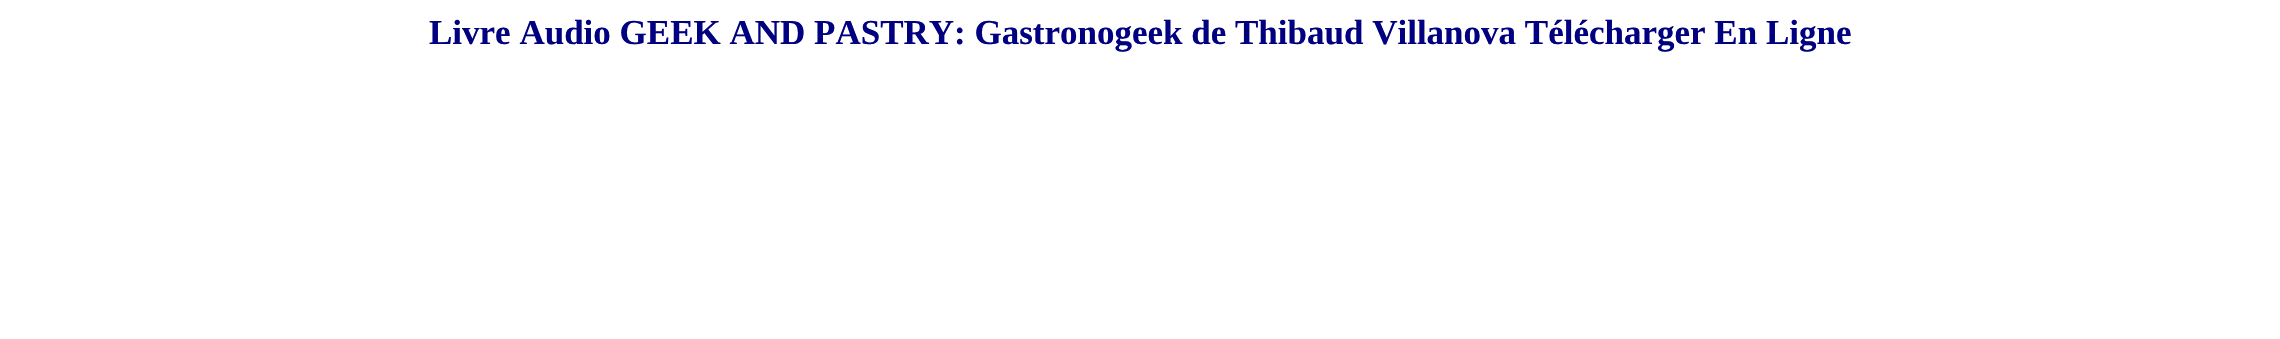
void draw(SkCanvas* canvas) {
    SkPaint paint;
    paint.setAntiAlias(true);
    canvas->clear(0xFFFFFFFF);
    SkFont font1(fontMgr->matchFamilyStyle("Liberation Serif", SkFontStyle::Bold()), 35);
    font1.setSubpixel(true);
    paint.setColor(0xFF000080);
    canvas->drawString("Livre Audio GEEK AND PASTRY: Gastronogeek de Thibaud Villanova Télécharger En Ligne", 429, 44, font1, paint);
}
